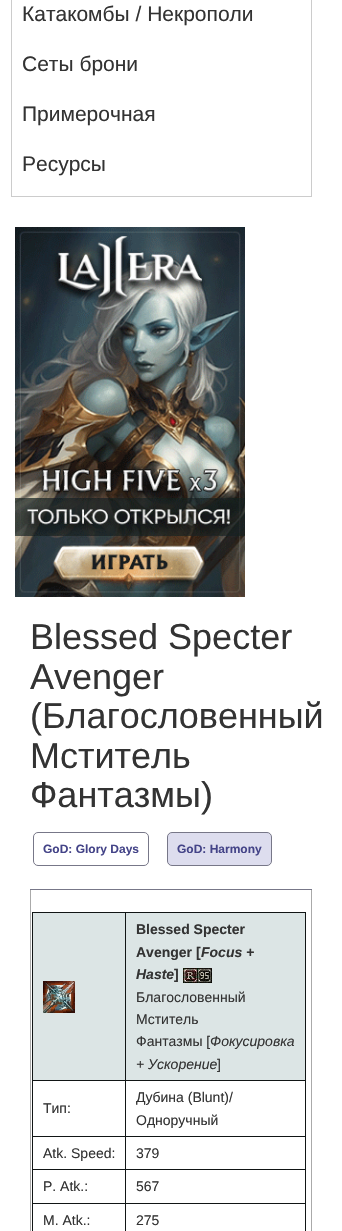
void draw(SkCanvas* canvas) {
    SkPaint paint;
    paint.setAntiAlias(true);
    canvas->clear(0xFFFFFFFF);
    paint.setStyle(SkPaint::kStroke_Style);
    paint.setStrokeWidth(1);
    paint.setColor(0xFFCCCCCC);
    canvas->drawRect(SkRect::MakeXYWH(11.5f, -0.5f, 300, 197), paint);
    SkFont font1(fontMgr->matchFamilyStyle("Liberation Sans", SkFontStyle::Normal()), 21);
    font1.setSubpixel(true);
    paint.setStyle(SkPaint::kFill_Style);
    paint.setColor(0xFF333333);
    canvas->drawString("Катакомбы / Некрополи", 22, 21, font1, paint);
    canvas->drawString("Сеты брони", 22, 71, font1, paint);
    canvas->drawString("Примерочная", 22, 121, font1, paint);
    canvas->drawString("Ресурсы", 22, 171, font1, paint);
    canvas->drawImageRect(SkImages::DeferredFromEncodedData(SkData::MakeFromFileName("img1.png")), SkRect::MakeXYWH(15, 227, 230, 370), SkSamplingOptions());
    SkFont font2(fontMgr->matchFamilyStyle("Liberation Sans", SkFontStyle::Normal()), 36);
    font2.setSubpixel(true);
    canvas->drawString("Blessed Specter", 30, 649, font2, paint);
    canvas->drawString("Avenger", 30, 689, font2, paint);
    canvas->drawString("(Благословенный", 30, 728, font2, paint);
    canvas->drawString("Мститель", 30, 768, font2, paint);
    canvas->drawString("Фантазмы)", 30, 807, font2, paint);
    paint.setColor(0xFF777788);
    canvas->drawRect(SkRect::MakeXYWH(30, 889, 282, 1), paint);
    paint.setStyle(SkPaint::kStroke_Style);
    canvas->drawRoundRect(SkRect::MakeXYWH(33.5f, 832.5f, 115, 33), 4.5f, 4.5f, paint);
    SkFont font3(fontMgr->matchFamilyStyle("Liberation Sans", SkFontStyle::Bold()), 12);
    font3.setSubpixel(true);
    paint.setStyle(SkPaint::kFill_Style);
    paint.setColor(0xFF444488);
    canvas->drawString("GoD: Glory Days", 43, 853, font3, paint);
    paint.setColor(0xFFDDDDEE);
    canvas->drawRoundRect(SkRect::MakeXYWH(167.5f, 832.5f, 104, 33), 4.5f, 4.5f, paint);
    paint.setStyle(SkPaint::kStroke_Style);
    paint.setColor(0xFF777788);
    canvas->drawRoundRect(SkRect::MakeXYWH(167.5f, 832.5f, 104, 33), 4.5f, 4.5f, paint);
    paint.setStyle(SkPaint::kFill_Style);
    paint.setColor(0xFF444488);
    canvas->drawString("GoD: Harmony", 177, 853, font3, paint);
    paint.setColor(0xFFAAAAAA);
    canvas->drawRect(SkRect::MakeXYWH(311, 890, 1, 341), paint);
    canvas->drawRect(SkRect::MakeXYWH(30, 890, 1, 341), paint);
    paint.setColor(0xFF111515);
    canvas->drawRect(SkRect::MakeXYWH(32, 912, 274, 1), paint);
    canvas->drawRect(SkRect::MakeXYWH(305, 912, 1, 319), paint);
    canvas->drawRect(SkRect::MakeXYWH(32, 912, 1, 319), paint);
    paint.setColor(0xFFDCE5E5);
    canvas->drawRect(SkRect::MakeXYWH(33, 913, 92, 167), paint);
    canvas->drawImageRect(SkImages::DeferredFromEncodedData(SkData::MakeFromFileName("img2.png")), SkRect::MakeXYWH(43, 981, 32, 32), SkSamplingOptions());
    canvas->drawRect(SkRect::MakeXYWH(126, 913, 179, 167), paint);
    paint.setColor(0xFF111515);
    canvas->drawRect(SkRect::MakeXYWH(125, 1080, 181, 1), paint);
    canvas->drawRect(SkRect::MakeXYWH(125, 1136, 181, 1), paint);
    canvas->drawRect(SkRect::MakeXYWH(125, 1169, 181, 1), paint);
    canvas->drawRect(SkRect::MakeXYWH(125, 1203, 181, 1), paint);
    canvas->drawRect(SkRect::MakeXYWH(125, 1203, 1, 28), paint);
    canvas->drawRect(SkRect::MakeXYWH(32, 1203, 94, 1), paint);
    canvas->drawRect(SkRect::MakeXYWH(125, 1169, 1, 35), paint);
    canvas->drawRect(SkRect::MakeXYWH(32, 1169, 94, 1), paint);
    canvas->drawRect(SkRect::MakeXYWH(125, 1136, 1, 34), paint);
    canvas->drawRect(SkRect::MakeXYWH(32, 1136, 94, 1), paint);
    canvas->drawRect(SkRect::MakeXYWH(125, 1080, 1, 57), paint);
    canvas->drawRect(SkRect::MakeXYWH(32, 1080, 94, 1), paint);
    canvas->drawRect(SkRect::MakeXYWH(125, 912, 1, 169), paint);
    SkFont font4(fontMgr->matchFamilyStyle("Liberation Sans", SkFontStyle::Bold()), 14);
    font4.setSubpixel(true);
    paint.setColor(0xFF333333);
    canvas->drawString("Blessed Specter", 136, 934, font4, paint);
    canvas->drawString("Avenger [", 136, 957, font4, paint);
    SkFont font5(fontMgr->matchFamilyStyle("Liberation Sans", SkFontStyle::BoldItalic()), 14);
    font5.setSubpixel(true);
    canvas->drawString("Focus +", 201, 957, font5, paint);
    canvas->drawString("Haste", 136, 979, font5, paint);
    canvas->drawString("]", 174, 979, font4, paint);
    canvas->drawImageRect(SkImages::DeferredFromEncodedData(SkData::MakeFromFileName("img3.png")), SkRect::MakeXYWH(183, 968, 29, 15), SkSamplingOptions());
    SkFont font6(fontMgr->matchFamilyStyle("Liberation Sans", SkFontStyle::Normal()), 14);
    font6.setSubpixel(true);
    canvas->drawString("Благословенный", 136, 1002, font6, paint);
    canvas->drawString("Мститель", 136, 1024, font6, paint);
    canvas->drawString("Фантазмы [", 136, 1046, font6, paint);
    SkFont font7(fontMgr->matchFamilyStyle("Liberation Sans", SkFontStyle::Italic()), 14);
    font7.setSubpixel(true);
    canvas->drawString("Фокусировка", 210, 1046, font7, paint);
    canvas->drawString("+ Ускорение", 136, 1069, font7, paint);
    canvas->drawString("]", 217, 1069, font6, paint);
    canvas->drawString("Тип:", 43, 1113, font6, paint);
    canvas->drawString("Дубина (Blunt)/", 136, 1102, font6, paint);
    canvas->drawString("Одноручный", 136, 1125, font6, paint);
    canvas->drawString("Atk. Speed:", 43, 1158, font6, paint);
    canvas->drawString("379", 136, 1158, font6, paint);
    canvas->drawString("P. Atk.:", 43, 1191, font6, paint);
    canvas->drawString("567", 136, 1191, font6, paint);
    canvas->drawString("M. Atk.:", 43, 1225, font6, paint);
    canvas->drawString("275", 136, 1225, font6, paint);
}
